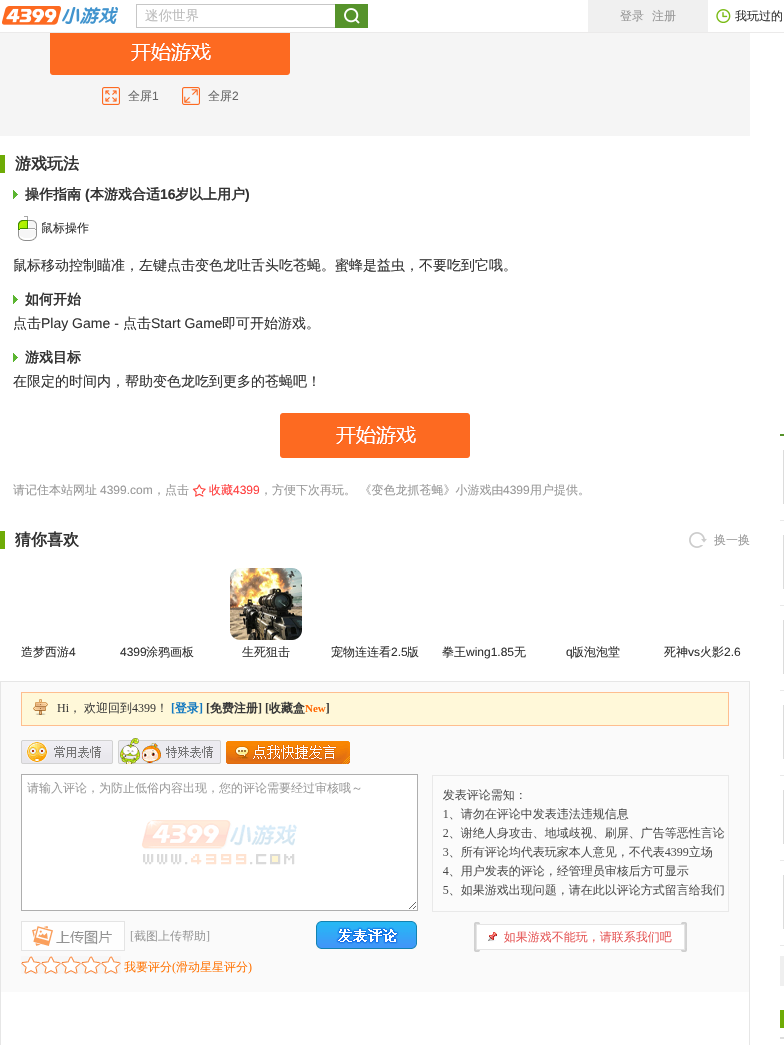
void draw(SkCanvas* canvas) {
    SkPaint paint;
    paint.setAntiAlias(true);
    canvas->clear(0xFFFFFFFF);
    paint.setColor(0xFFEBEAEA);
    canvas->drawRect(SkRect::MakeXYWH(0, 32, 784, 1), paint);
    canvas->drawImageRect(SkImages::DeferredFromEncodedData(SkData::MakeFromFileName("img1.png")), SkRect::MakeXYWH(2, 6, 116, 19), SkSamplingOptions());
    paint.setColor(0xFFC7C7C7);
    canvas->drawRect(SkRect::MakeXYWH(136, 4, 199, 1), paint);
    canvas->drawRect(SkRect::MakeXYWH(136, 27, 199, 1), paint);
    canvas->drawRect(SkRect::MakeXYWH(136, 4, 1, 24), paint);
    SkFont font1(fontMgr->matchFamilyStyle("WenQuanYi Zen Hei", SkFontStyle(500, SkFontStyle::kNormal_Width, SkFontStyle::kUpright_Slant)), 13.5f);
    font1.setSubpixel(true);
    paint.setColor(0xFFBCBCBC);
    canvas->drawString("迷你世界", 145, 20, font1, paint);
    canvas->drawImageRect(SkImages::DeferredFromEncodedData(SkData::MakeFromFileName("img2.png")), SkRect::MakeXYWH(335, 4, 33, 24), SkSamplingOptions());
    paint.setColor(0xFFF0F0F0);
    canvas->drawRect(SkRect::MakeXYWH(588, 0, 120, 32), paint);
    SkFont font2(fontMgr->matchFamilyStyle("WenQuanYi Zen Hei", SkFontStyle(500, SkFontStyle::kNormal_Width, SkFontStyle::kUpright_Slant)), 12);
    font2.setSubpixel(true);
    paint.setColor(0xFF999999);
    canvas->drawString("登录", 620, 20, font2, paint);
    canvas->drawString("注册", 652, 20, font2, paint);
    canvas->drawImageRect(SkImages::DeferredFromEncodedData(SkData::MakeFromFileName("img3.png")), SkRect::MakeXYWH(716, 9, 15, 14), SkSamplingOptions());
    paint.setColor(0xFF333333);
    canvas->drawString("我玩过的", 735, 20, font2, paint);
    paint.setColor(0xFFF5F5F5);
    canvas->drawRect(SkRect::MakeXYWH(0, 33, 750, 103), paint);
    canvas->drawImageRect(SkImages::DeferredFromEncodedData(SkData::MakeFromFileName("img4.png")), SkRect::MakeXYWH(50, 33, 240, 42), SkSamplingOptions());
    canvas->drawImageRect(SkImages::DeferredFromEncodedData(SkData::MakeFromFileName("img5.png")), SkRect::MakeXYWH(102, 87, 18, 18), SkSamplingOptions());
    paint.setColor(0xFF666666);
    canvas->drawString("全屏", 128, 100, font2, paint);
    SkFont font3(fontMgr->matchFamilyStyle("Liberation Sans", SkFontStyle::Normal()), 12);
    font3.setSubpixel(true);
    canvas->drawString("1", 152, 100, font3, paint);
    canvas->drawImageRect(SkImages::DeferredFromEncodedData(SkData::MakeFromFileName("img6.png")), SkRect::MakeXYWH(182, 87, 18, 18), SkSamplingOptions());
    canvas->drawString("全屏", 208, 100, font2, paint);
    canvas->drawString("2", 232, 100, font3, paint);
    paint.setColor(0xFF6EAB06);
    canvas->drawRect(SkRect::MakeXYWH(0, 155, 5, 18), paint);
    SkFont font4(fontMgr->matchFamilyStyle("WenQuanYi Zen Hei", SkFontStyle::Bold()), 16);
    font4.setSubpixel(true);
    paint.setColor(0xFF333333);
    canvas->drawString("游戏玩法", 15, 169, font4, paint);
    canvas->drawImageRect(SkImages::DeferredFromEncodedData(SkData::MakeFromFileName("img7.png")), SkRect::MakeXYWH(13, 190, 5, 9), SkSamplingOptions());
    SkFont font5(fontMgr->matchFamilyStyle("WenQuanYi Zen Hei", SkFontStyle::Bold()), 14);
    font5.setSubpixel(true);
    canvas->drawString("操作指南", 25, 199, font5, paint);
    SkFont font6(fontMgr->matchFamilyStyle("Liberation Sans", SkFontStyle::Bold()), 14);
    font6.setSubpixel(true);
    canvas->drawString("(", 85, 199, font6, paint);
    canvas->drawString("本游戏合适", 90, 199, font5, paint);
    canvas->drawString("16", 160, 199, font6, paint);
    canvas->drawString("岁以上用户", 175, 199, font5, paint);
    canvas->drawString(")", 245, 199, font6, paint);
    canvas->drawImageRect(SkImages::DeferredFromEncodedData(SkData::MakeFromFileName("img8.png")), SkRect::MakeXYWH(18, 216, 19, 25), SkSamplingOptions());
    canvas->drawString("鼠标操作", 41, 232, font2, paint);
    SkFont font7(fontMgr->matchFamilyStyle("WenQuanYi Zen Hei", SkFontStyle(500, SkFontStyle::kNormal_Width, SkFontStyle::kUpright_Slant)), 14);
    font7.setSubpixel(true);
    canvas->drawString("鼠标移动控制瞄准，左键点击变色龙吐舌头吃苍蝇。蜜蜂是益虫，不要吃到它哦。", 13, 270, font7, paint);
    canvas->drawImageRect(SkImages::DeferredFromEncodedData(SkData::MakeFromFileName("img7.png")), SkRect::MakeXYWH(13, 295, 5, 9), SkSamplingOptions());
    canvas->drawString("如何开始", 25, 304, font5, paint);
    canvas->drawString("点击", 13, 328, font7, paint);
    SkFont font8(fontMgr->matchFamilyStyle("Liberation Sans", SkFontStyle::Normal()), 14);
    font8.setSubpixel(true);
    canvas->drawString("Play Game -", 41, 328, font8, paint);
    canvas->drawString("点击", 123, 328, font7, paint);
    canvas->drawString("Start Game", 151, 328, font8, paint);
    canvas->drawString("即可开始游戏。", 222, 328, font7, paint);
    canvas->drawImageRect(SkImages::DeferredFromEncodedData(SkData::MakeFromFileName("img7.png")), SkRect::MakeXYWH(13, 353, 5, 9), SkSamplingOptions());
    canvas->drawString("游戏目标", 25, 362, font5, paint);
    canvas->drawString("在限定的时间内，帮助变色龙吃到更多的苍蝇吧！", 13, 386, font7, paint);
    canvas->drawImageRect(SkImages::DeferredFromEncodedData(SkData::MakeFromFileName("img9.png")), SkRect::MakeXYWH(280, 413, 190, 45), SkSamplingOptions());
    paint.setColor(0xFF999999);
    canvas->drawString("请记住本站网址", 13, 494, font2, paint);
    canvas->drawString("4399.com", 100, 494, font3, paint);
    canvas->drawString("，点击", 153, 494, font2, paint);
    canvas->drawImageRect(SkImages::DeferredFromEncodedData(SkData::MakeFromFileName("img10.png")), SkRect::MakeXYWH(192, 484, 14, 13), SkSamplingOptions());
    paint.setColor(0xFFFF3E3E);
    canvas->drawString("收藏", 209, 494, font2, paint);
    canvas->drawString("4399", 233, 494, font3, paint);
    paint.setColor(0xFF999999);
    canvas->drawString("，方便下次再玩。 《变色龙抓苍蝇》小游戏由", 260, 494, font2, paint);
    canvas->drawString("4399", 503, 494, font3, paint);
    canvas->drawString("用户提供。", 530, 494, font2, paint);
    paint.setColor(0xFF6EAB06);
    canvas->drawRect(SkRect::MakeXYWH(0, 531, 5, 18), paint);
    paint.setColor(0xFF333333);
    canvas->drawString("猜你喜欢", 15, 545, font4, paint);
    canvas->drawImageRect(SkImages::DeferredFromEncodedData(SkData::MakeFromFileName("img11.png")), SkRect::MakeXYWH(689, 532, 18, 16), SkSamplingOptions());
    paint.setColor(0xFF999999);
    canvas->drawString("换一换", 714, 544, font2, paint);
    paint.setColor(0xFF333333);
    canvas->drawString("造梦西游", 21, 656, font2, paint);
    canvas->drawString("4", 69, 656, font3, paint);
    canvas->drawString("4399", 120, 656, font3, paint);
    canvas->drawString("涂鸦画板", 146, 656, font2, paint);
    canvas->drawImageRect(SkImages::DeferredFromEncodedData(SkData::MakeFromFileName("img12.png")), SkRect::MakeXYWH(230, 568, 72, 72), SkSamplingOptions());
    canvas->drawString("生死狙击", 242, 656, font2, paint);
    canvas->drawString("宠物连连看", 331, 656, font2, paint);
    canvas->drawString("2.5", 391, 656, font3, paint);
    canvas->drawString("版", 407, 656, font2, paint);
    canvas->drawString("拳王", 442, 656, font2, paint);
    canvas->drawString("wing1.85", 466, 656, font3, paint);
    canvas->drawString("无", 514, 656, font2, paint);
    canvas->drawString("q", 566, 656, font3, paint);
    canvas->drawString("版泡泡堂", 572, 656, font2, paint);
    canvas->drawString("死神", 664, 656, font2, paint);
    canvas->drawString("vs", 688, 656, font3, paint);
    canvas->drawString("火影", 700, 656, font2, paint);
    canvas->drawString("2.6", 724, 656, font3, paint);
    paint.setStyle(SkPaint::kStroke_Style);
    paint.setStrokeWidth(1);
    paint.setColor(0xFFE6E6E6);
    canvas->drawRect(SkRect::MakeXYWH(0.5f, 681.5f, 749, 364), paint);
    canvas->drawImageRect(SkImages::DeferredFromEncodedData(SkData::MakeFromFileName("img13.png")), SkRect::MakeXYWH(1, 682, 748, 310), SkSamplingOptions());
    paint.setStyle(SkPaint::kFill_Style);
    paint.setColor(0xFF56932B);
    canvas->drawRect(SkRect::MakeXYWH(780, 434, 4, 2), paint);
    paint.setColor(0xFFE9E9E9);
    canvas->drawRect(SkRect::MakeXYWH(780, 520, 4, 1), paint);
    paint.setColor(0xFFDCDCDC);
    canvas->drawRect(SkRect::MakeXYWH(783, 450, 1, 54), paint);
    paint.setColor(0xFFE9E9E9);
    canvas->drawRect(SkRect::MakeXYWH(780, 605, 4, 1), paint);
    paint.setColor(0xFFDCDCDC);
    canvas->drawRect(SkRect::MakeXYWH(783, 535, 1, 54), paint);
    paint.setColor(0xFFE9E9E9);
    canvas->drawRect(SkRect::MakeXYWH(780, 690, 4, 1), paint);
    paint.setColor(0xFFDCDCDC);
    canvas->drawRect(SkRect::MakeXYWH(783, 620, 1, 54), paint);
    paint.setColor(0xFFE9E9E9);
    canvas->drawRect(SkRect::MakeXYWH(780, 775, 4, 1), paint);
    paint.setColor(0xFFDCDCDC);
    canvas->drawRect(SkRect::MakeXYWH(783, 705, 1, 54), paint);
    paint.setColor(0xFFE9E9E9);
    canvas->drawRect(SkRect::MakeXYWH(780, 860, 4, 1), paint);
    paint.setColor(0xFFDCDCDC);
    canvas->drawRect(SkRect::MakeXYWH(783, 790, 1, 54), paint);
    paint.setColor(0xFFE9E9E9);
    canvas->drawRect(SkRect::MakeXYWH(780, 945, 4, 1), paint);
    paint.setColor(0xFFDCDCDC);
    canvas->drawRect(SkRect::MakeXYWH(783, 875, 1, 54), paint);
    paint.setColor(0xFFEFEFEF);
    canvas->drawRect(SkRect::MakeXYWH(780, 956, 4, 30), paint);
    paint.setColor(0xFFDDDDDD);
    canvas->drawRect(SkRect::MakeXYWH(780, 1037, 4, 2), paint);
    paint.setColor(0xFF6EAB06);
    canvas->drawRect(SkRect::MakeXYWH(780, 1010, 4, 18), paint);
}
